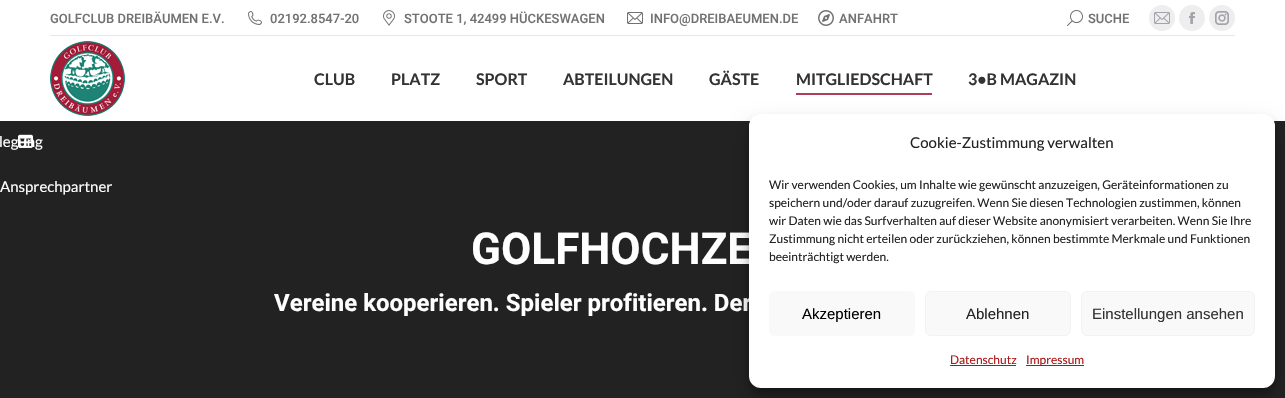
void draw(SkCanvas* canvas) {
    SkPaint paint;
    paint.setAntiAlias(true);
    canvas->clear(0xFF222222);
    paint.setColor(0xFFFFFFFF);
    canvas->drawRect(SkRect::MakeXYWH(0, 0, 1285, 121), paint);
    SkFont font1(fontMgr->matchFamilyStyle("Roboto", SkFontStyle(500, SkFontStyle::kNormal_Width, SkFontStyle::kUpright_Slant)), 13);
    font1.setSubpixel(true);
    paint.setColor(0xFF727272);
    canvas->drawString("GOLFCLUB DREIBÄUMEN E.V.", 50, 23, font1, paint);
    canvas->drawImageRect(SkImages::DeferredFromEncodedData(SkData::MakeFromFileName("img1.png")), SkRect::MakeXYWH(248, 11, 14, 14), SkSamplingOptions());
    canvas->drawString("02192.8547-20", 270, 23, font1, paint);
    canvas->drawImageRect(SkImages::DeferredFromEncodedData(SkData::MakeFromFileName("img2.png")), SkRect::MakeXYWH(383, 10, 12, 16), SkSamplingOptions());
    canvas->drawString("STOOTE 1, 42499 HÜCKESWAGEN", 404, 23, font1, paint);
    canvas->drawImageRect(SkImages::DeferredFromEncodedData(SkData::MakeFromFileName("img3.png")), SkRect::MakeXYWH(627, 12, 16, 12), SkSamplingOptions());
    canvas->drawString("INFO@DREIBAEUMEN.DE", 650, 23, font1, paint);
    canvas->drawImageRect(SkImages::DeferredFromEncodedData(SkData::MakeFromFileName("img4.png")), SkRect::MakeXYWH(818, 10, 16, 16), SkSamplingOptions());
    canvas->drawString("ANFAHRT", 839, 23, font1, paint);
    canvas->drawImageRect(SkImages::DeferredFromEncodedData(SkData::MakeFromFileName("img5.png")), SkRect::MakeXYWH(1067, 10, 16, 16), SkSamplingOptions());
    canvas->drawString("SUCHE", 1088, 23, font1, paint);
    paint.setColor(0xFFEEEEEF);
    canvas->drawCircle(1162, 18, 13, paint);
    canvas->drawImageRect(SkImages::DeferredFromEncodedData(SkData::MakeFromFileName("img6.png")), SkRect::MakeXYWH(1154, 12, 16, 12), SkSamplingOptions());
    canvas->drawCircle(1192, 18, 13, paint);
    canvas->drawImageRect(SkImages::DeferredFromEncodedData(SkData::MakeFromFileName("img7.png")), SkRect::MakeXYWH(1189, 12, 6, 12), SkSamplingOptions());
    canvas->drawCircle(1222, 18, 13, paint);
    canvas->drawImageRect(SkImages::DeferredFromEncodedData(SkData::MakeFromFileName("img8.png")), SkRect::MakeXYWH(1215, 11, 14, 14), SkSamplingOptions());
    paint.setColor(0xFFE7E7E7);
    canvas->drawRect(SkRect::MakeXYWH(50, 35, 1185, 1), paint);
    canvas->drawImageRect(SkImages::DeferredFromEncodedData(SkData::MakeFromFileName("img9.png")), SkRect::MakeXYWH(50, 41, 75, 75), SkSamplingOptions());
    SkFont font2(fontMgr->matchFamilyStyle("Lato", SkFontStyle::Bold()), 16);
    font2.setSubpixel(true);
    paint.setColor(0xFF333333);
    canvas->drawString("CLUB", 314, 85, font2, paint);
    canvas->drawString("PLATZ", 391, 85, font2, paint);
    canvas->drawString("SPORT", 476, 85, font2, paint);
    canvas->drawString("ABTEILUNGEN", 563, 85, font2, paint);
    canvas->drawString("GÄSTE", 709, 85, font2, paint);
    canvas->drawString("MITGLIEDSCHAFT", 796, 85, font2, paint);
    paint.setColor(0xFFAD3E55);
    canvas->drawRect(SkRect::MakeXYWH(796, 93, 136, 2), paint);
    paint.setColor(0xFF333333);
    canvas->drawString("3•B MAGAZIN", 968, 85, font2, paint);
    SkFont font3(fontMgr->matchFamilyStyle("Roboto", SkFontStyle::Bold()), 44);
    font3.setSubpixel(true);
    paint.setColor(0xFFFFFFFF);
    canvas->drawString("GOLFHOCHZE", 471, 264, font3, paint);
    SkFont font4(fontMgr->matchFamilyStyle("Roboto", SkFontStyle::Bold()), 24);
    font4.setSubpixel(true);
    canvas->drawString("Vereine kooperieren. Spieler profitieren. Der", 274, 311, font4, paint);
    canvas->drawImageRect(SkImages::DeferredFromEncodedData(SkData::MakeFromFileName("img10.png")), SkRect::MakeXYWH(18, 134, 15, 14), SkSamplingOptions());
    SkFont font5(fontMgr->matchFamilyStyle("Lato", SkFontStyle::Normal()), 15);
    font5.setSubpixel(true);
    canvas->drawString("legung", -1, 147, font5, paint);
    canvas->drawString("Ansprechpartner", 0, 192, font5, paint);
    paint.setColor(0x3B000000);
    paint.setMaskFilter(SkMaskFilter::MakeBlur(kNormal_SkBlurStyle, 3));
    canvas->drawRoundRect(SkRect::MakeXYWH(749, 120, 526, 274), 12, 12, paint);
    paint.setMaskFilter(nullptr);
    paint.setColor(0x30000000);
    paint.setMaskFilter(SkMaskFilter::MakeBlur(kNormal_SkBlurStyle, 10));
    canvas->drawRoundRect(SkRect::MakeXYWH(749, 124, 526, 274), 12, 12, paint);
    paint.setMaskFilter(nullptr);
    paint.setColor(0xFFFFFFFF);
    canvas->drawRoundRect(SkRect::MakeXYWH(749, 114, 526, 274), 12, 12, paint);
    paint.setColor(0xFF222222);
    canvas->drawString("Cookie-Zustimmung verwalten", 910, 148, font5, paint);
    SkFont font6(fontMgr->matchFamilyStyle("Lato", SkFontStyle::Normal()), 12);
    font6.setSubpixel(true);
    canvas->drawString("Wir verwenden Cookies, um Inhalte wie gewünscht anzuzeigen, Geräteinformationen zu", 769, 189, font6, paint);
    canvas->drawString("speichern und/oder darauf zuzugreifen. Wenn Sie diesen Technologien zustimmen, können", 769, 207, font6, paint);
    canvas->drawString("wir Daten wie das Surfverhalten auf dieser Website anonymisiert verarbeiten. Wenn Sie Ihre", 769, 225, font6, paint);
    canvas->drawString("Zustimmung nicht erteilen oder zurückziehen, können bestimmte Merkmale und Funktionen", 769, 243, font6, paint);
    canvas->drawString("beeinträchtigt werden.", 769, 261, font6, paint);
    paint.setColor(0xFFF9F9F9);
    canvas->drawRoundRect(SkRect::MakeXYWH(769, 291, 146, 45), 6, 6, paint);
    SkFont font7(fontMgr->matchFamilyStyle("Liberation Sans", SkFontStyle::Normal()), 15);
    font7.setSubpixel(true);
    paint.setColor(0xFF000000);
    canvas->drawString("Akzeptieren", 802, 319, font7, paint);
    paint.setColor(0xFFF9F9F9);
    canvas->drawRoundRect(SkRect::MakeXYWH(925.5f, 291.5f, 145, 44), 5.5f, 5.5f, paint);
    paint.setStyle(SkPaint::kStroke_Style);
    paint.setStrokeWidth(1);
    paint.setColor(0xFFF2F2F2);
    canvas->drawRoundRect(SkRect::MakeXYWH(925.5f, 291.5f, 145, 44), 5.5f, 5.5f, paint);
    paint.setStyle(SkPaint::kFill_Style);
    paint.setColor(0xFF222222);
    canvas->drawString("Ablehnen", 966, 319, font7, paint);
    paint.setColor(0xFFF9F9F9);
    canvas->drawRoundRect(SkRect::MakeXYWH(1081.5f, 291.5f, 173, 44), 5.5f, 5.5f, paint);
    paint.setStyle(SkPaint::kStroke_Style);
    paint.setColor(0xFFF2F2F2);
    canvas->drawRoundRect(SkRect::MakeXYWH(1081.5f, 291.5f, 173, 44), 5.5f, 5.5f, paint);
    paint.setStyle(SkPaint::kFill_Style);
    paint.setColor(0xFF333333);
    canvas->drawString("Einstellungen ansehen", 1092, 319, font7, paint);
    paint.setColor(0xFFAA1919);
    canvas->drawString("Datenschutz", 950, 364, font6, paint);
    canvas->drawRect(SkRect::MakeXYWH(950, 365, 66, 1), paint);
    canvas->drawRect(SkRect::MakeXYWH(1026, 365, 58, 1), paint);
    canvas->drawString("Impressum", 1026, 364, font6, paint);
}
